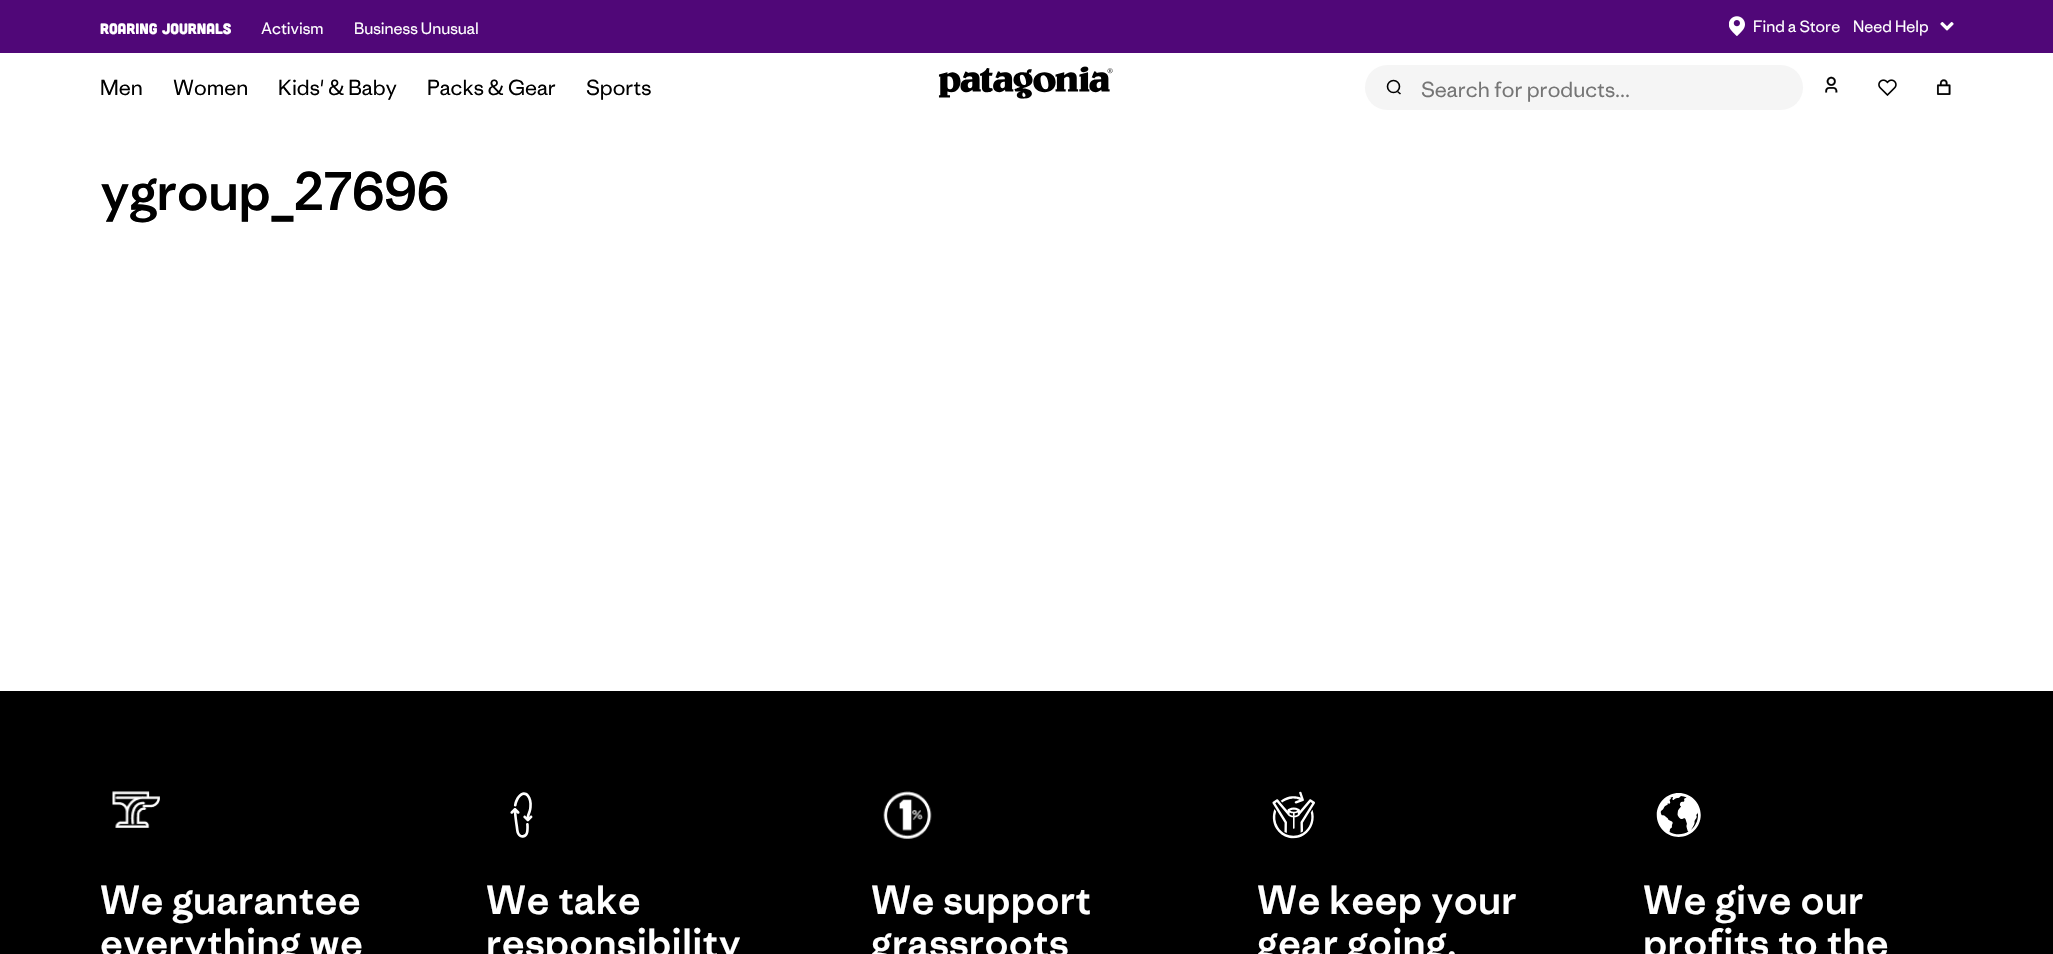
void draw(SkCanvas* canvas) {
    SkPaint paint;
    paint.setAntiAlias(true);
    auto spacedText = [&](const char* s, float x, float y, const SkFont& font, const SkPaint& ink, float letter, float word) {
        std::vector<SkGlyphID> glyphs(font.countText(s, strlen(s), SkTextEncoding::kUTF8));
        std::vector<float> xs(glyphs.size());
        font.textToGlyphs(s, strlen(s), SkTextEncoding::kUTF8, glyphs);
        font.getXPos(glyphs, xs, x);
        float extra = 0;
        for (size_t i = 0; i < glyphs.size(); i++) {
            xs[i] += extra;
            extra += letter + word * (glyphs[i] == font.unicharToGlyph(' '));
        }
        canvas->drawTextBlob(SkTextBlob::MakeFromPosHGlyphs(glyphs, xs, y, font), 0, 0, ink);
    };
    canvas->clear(0xFFFFFFFF);
    paint.setColor(0xFF500778);
    canvas->drawRect(SkRect::MakeXYWH(0, 0, 2053, 53), paint);
    SkFont font1(fontMgr->matchFamilyStyle("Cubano", SkFontStyle::Normal()), 15);
    font1.setSubpixel(true);
    paint.setColor(0xFFFFFFFF);
    canvas->drawString("ROARING JOURNALS", 100, 34, font1, paint);
    SkFont font2(fontMgr->matchFamilyStyle("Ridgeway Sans", SkFontStyle::Normal()), 15);
    font2.setSubpixel(true);
    canvas->drawString("Activism", 261, 34, font2, paint);
    canvas->drawString("Business Unusual", 354, 34, font2, paint);
    canvas->drawImageRect(SkImages::DeferredFromEncodedData(SkData::MakeFromFileName("img1.png")), SkRect::MakeXYWH(1729, 16, 16, 20), SkSamplingOptions());
    canvas->drawString("Find a Store", 1753, 32, font2, paint);
    canvas->drawString("Need Help", 1853, 32, font2, paint);
    canvas->drawImageRect(SkImages::DeferredFromEncodedData(SkData::MakeFromFileName("img2.png")), SkRect::MakeXYWH(1940, 22, 14, 9), SkSamplingOptions());
    SkFont font3(fontMgr->matchFamilyStyle("Ridgeway Sans", SkFontStyle::Normal()), 20);
    font3.setSubpixel(true);
    paint.setColor(0xFF000000);
    canvas->drawString("Men", 100, 95, font3, paint);
    canvas->drawString("Women", 173, 95, font3, paint);
    canvas->drawString("Kids' & Baby", 278, 95, font3, paint);
    canvas->drawString("Packs & Gear", 427, 95, font3, paint);
    canvas->drawString("Sports", 586, 95, font3, paint);
    canvas->drawImageRect(SkImages::DeferredFromEncodedData(SkData::MakeFromFileName("img3.png")), SkRect::MakeXYWH(938, 66, 175, 33), SkSamplingOptions());
    paint.setColor(0xFFF5F5F5);
    canvas->drawRoundRect(SkRect::MakeXYWH(1365, 65, 438, 45), 22.5f, 22.5f, paint);
    paint.setStyle(SkPaint::kStroke_Style);
    paint.setStrokeWidth(1.6f);
    paint.setColor(0xFF000000);
    canvas->drawCircle(1393.5f, 86.5f, 6, paint);
    canvas->drawPath(SkPathBuilder().moveTo(1397.5f, 91.5f).lineTo(1400.5f, 94).detach(), paint);
    paint.setStyle(SkPaint::kFill_Style);
    paint.setColor(0xFF757575);
    canvas->drawString("Search for products...", 1421, 97, font3, paint);
    canvas->drawImageRect(SkImages::DeferredFromEncodedData(SkData::MakeFromFileName("img4.png")), SkRect::MakeXYWH(1825, 76, 13, 17), SkSamplingOptions());
    canvas->drawImageRect(SkImages::DeferredFromEncodedData(SkData::MakeFromFileName("img5.png")), SkRect::MakeXYWH(1878, 79, 19, 17), SkSamplingOptions());
    canvas->drawImageRect(SkImages::DeferredFromEncodedData(SkData::MakeFromFileName("img6.png")), SkRect::MakeXYWH(1936, 79, 15, 16), SkSamplingOptions());
    SkFont font4(fontMgr->matchFamilyStyle("Ridgeway Sans", SkFontStyle(500, SkFontStyle::kNormal_Width, SkFontStyle::kUpright_Slant)), 50);
    font4.setSubpixel(true);
    paint.setColor(0xFF000000);
    spacedText("ygroup_27696", 100, 210, font4, paint, -0.5f, 0);
    canvas->drawRect(SkRect::MakeXYWH(0, 691, 2053, 263), paint);
    canvas->drawImageRect(SkImages::DeferredFromEncodedData(SkData::MakeFromFileName("img7.png")), SkRect::MakeXYWH(112, 791, 48, 37), SkSamplingOptions());
    SkFont font5(fontMgr->matchFamilyStyle("Ridgeway Sans", SkFontStyle(500, SkFontStyle::kNormal_Width, SkFontStyle::kUpright_Slant)), 37.5f);
    font5.setSubpixel(true);
    paint.setColor(0xFFFFFFFF);
    spacedText("We guarantee", 100, 914, font5, paint, 0.25f, 0);
    spacedText("everything we", 100, 957, font5, paint, 0.25f, 0);
    canvas->drawImageRect(SkImages::DeferredFromEncodedData(SkData::MakeFromFileName("img8.png")), SkRect::MakeXYWH(510, 792, 23, 46), SkSamplingOptions());
    spacedText("We take", 486, 914, font5, paint, 0.25f, 0);
    spacedText("responsibility", 486, 957, font5, paint, 0.25f, 0);
    canvas->drawImageRect(SkImages::DeferredFromEncodedData(SkData::MakeFromFileName("img9.png")), SkRect::MakeXYWH(883, 791, 49, 48), SkSamplingOptions());
    spacedText("We support", 871, 914, font5, paint, 0.25f, 0);
    spacedText("grassroots", 871, 957, font5, paint, 0.25f, 0);
    canvas->drawImageRect(SkImages::DeferredFromEncodedData(SkData::MakeFromFileName("img10.png")), SkRect::MakeXYWH(1272, 791, 43, 48), SkSamplingOptions());
    spacedText("We keep your", 1257, 914, font5, paint, 0.25f, 0);
    spacedText("gear going.", 1257, 957, font5, paint, 0.25f, 0);
    canvas->drawImageRect(SkImages::DeferredFromEncodedData(SkData::MakeFromFileName("img11.png")), SkRect::MakeXYWH(1656, 793, 45, 44), SkSamplingOptions());
    spacedText("We give our", 1643, 914, font5, paint, 0.25f, 0);
    spacedText("profits to the", 1643, 957, font5, paint, 0.25f, 0);
}
